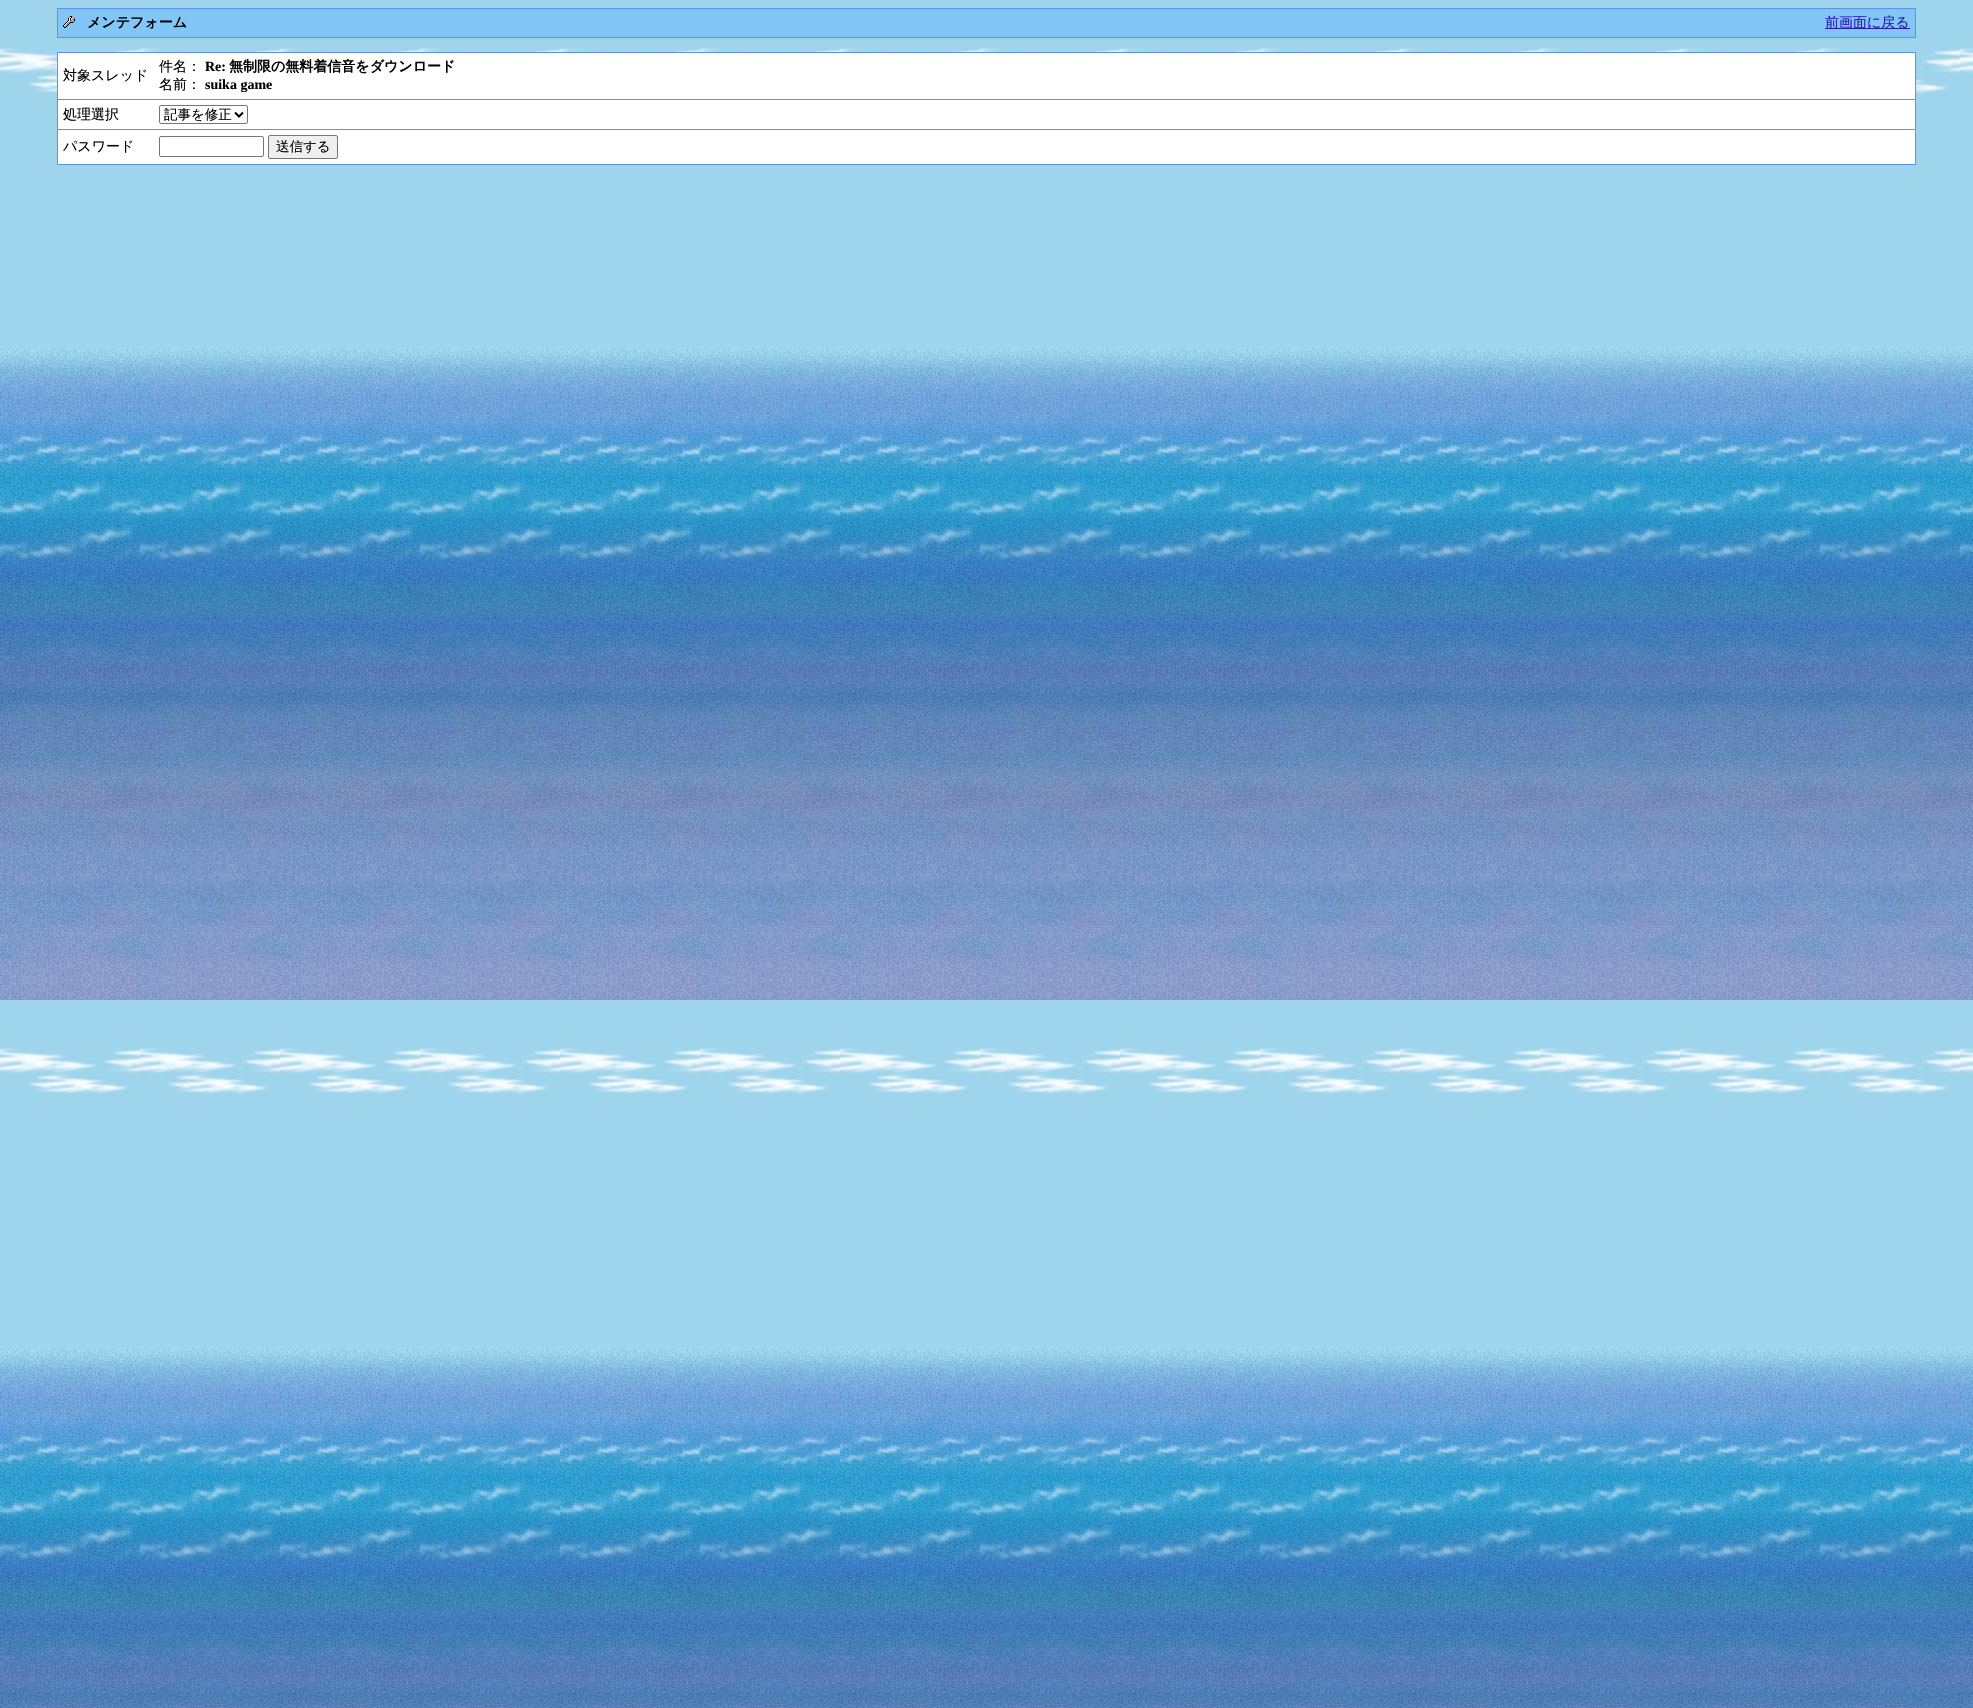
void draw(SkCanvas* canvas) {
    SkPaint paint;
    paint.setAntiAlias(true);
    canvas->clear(0xFFFFFFFF);
    canvas->drawImageRect(SkImages::DeferredFromEncodedData(SkData::MakeFromFileName("img1.png")), SkRect::MakeXYWH(0, 0, 1973, 1708), SkSamplingOptions());
    paint.setColor(0xFF5E92E8);
    canvas->drawRect(SkRect::MakeXYWH(57, 8, 1859, 30), paint);
    paint.setColor(0xFF82C5F7);
    canvas->drawRect(SkRect::MakeXYWH(58, 9, 1857, 28), paint);
    canvas->drawImageRect(SkImages::DeferredFromEncodedData(SkData::MakeFromFileName("img2.png")), SkRect::MakeXYWH(63, 16, 12, 12), SkSamplingOptions());
    SkFont font1(fontMgr->matchFamilyStyle("WenQuanYi Zen Hei", SkFontStyle::Bold()), 14);
    font1.setSubpixel(true);
    paint.setColor(0xFF000000);
    canvas->drawString("メンテフォーム", 87, 27, font1, paint);
    paint.setColor(0xFF2D18BC);
    canvas->drawRect(SkRect::MakeXYWH(1825, 28, 85, 1), paint);
    SkFont font2(fontMgr->matchFamilyStyle("WenQuanYi Zen Hei", SkFontStyle(500, SkFontStyle::kNormal_Width, SkFontStyle::kUpright_Slant)), 14);
    font2.setSubpixel(true);
    canvas->drawString("前画面に戻る", 1825, 27, font2, paint);
    paint.setColor(0xFF5E92E8);
    canvas->drawRect(SkRect::MakeXYWH(57, 52, 1859, 113), paint);
    paint.setColor(0xFFFFFFFF);
    canvas->drawRect(SkRect::MakeXYWH(58, 53, 1857, 46), paint);
    paint.setColor(0xFF000000);
    canvas->drawString("対象スレッド", 63, 80, font2, paint);
    canvas->drawString("件名：", 159, 71, font2, paint);
    SkFont font3(fontMgr->matchFamilyStyle("Liberation Serif", SkFontStyle::Bold()), 14);
    font3.setSubpixel(true);
    canvas->drawString("Re:", 205, 71, font3, paint);
    canvas->drawString("無制限の無料着信音をダウンロード", 229, 71, font1, paint);
    canvas->drawString("名前：", 159, 89, font2, paint);
    canvas->drawString("suika game", 205, 89, font3, paint);
    paint.setColor(0xFFFFFFFF);
    canvas->drawRect(SkRect::MakeXYWH(58, 100, 1857, 29), paint);
    paint.setColor(0xFF000000);
    canvas->drawString("処理選択", 63, 119, font2, paint);
    paint.setStyle(SkPaint::kStroke_Style);
    paint.setStrokeWidth(1);
    paint.setColor(0xFF767676);
    canvas->drawRoundRect(SkRect::MakeXYWH(159.5f, 105.5f, 88, 18), 1.5f, 1.5f, paint);
    paint.setStrokeWidth(2);
    paint.setColor(0xFF000000);
    canvas->drawPath(SkPathBuilder().moveTo(235, 112.5f).lineTo(239, 116.5f).lineTo(243, 112.5f).detach(), paint);
    SkFont font4(fontMgr->matchFamilyStyle("WenQuanYi Zen Hei", SkFontStyle(500, SkFontStyle::kNormal_Width, SkFontStyle::kUpright_Slant)), 13.5f);
    font4.setSubpixel(true);
    paint.setStyle(SkPaint::kFill_Style);
    canvas->drawString("記事を修正", 164, 119, font4, paint);
    paint.setColor(0xFFFFFFFF);
    canvas->drawRect(SkRect::MakeXYWH(58, 130, 1857, 34), paint);
    paint.setColor(0xFF000000);
    canvas->drawString("パスワード", 63, 151, font2, paint);
    paint.setStyle(SkPaint::kStroke_Style);
    paint.setStrokeWidth(1);
    paint.setColor(0xFF767676);
    canvas->drawRoundRect(SkRect::MakeXYWH(159.5f, 136.5f, 104, 20), 1.5f, 1.5f, paint);
    paint.setStyle(SkPaint::kFill_Style);
    paint.setColor(0xFFEFEFEF);
    canvas->drawRoundRect(SkRect::MakeXYWH(268.5f, 135.5f, 69, 23), 1.5f, 1.5f, paint);
    paint.setStyle(SkPaint::kStroke_Style);
    paint.setColor(0xFF767676);
    canvas->drawRoundRect(SkRect::MakeXYWH(268.5f, 135.5f, 69, 23), 1.5f, 1.5f, paint);
    paint.setStyle(SkPaint::kFill_Style);
    paint.setColor(0xFF000000);
    canvas->drawString("送信する", 276, 151, font4, paint);
}
